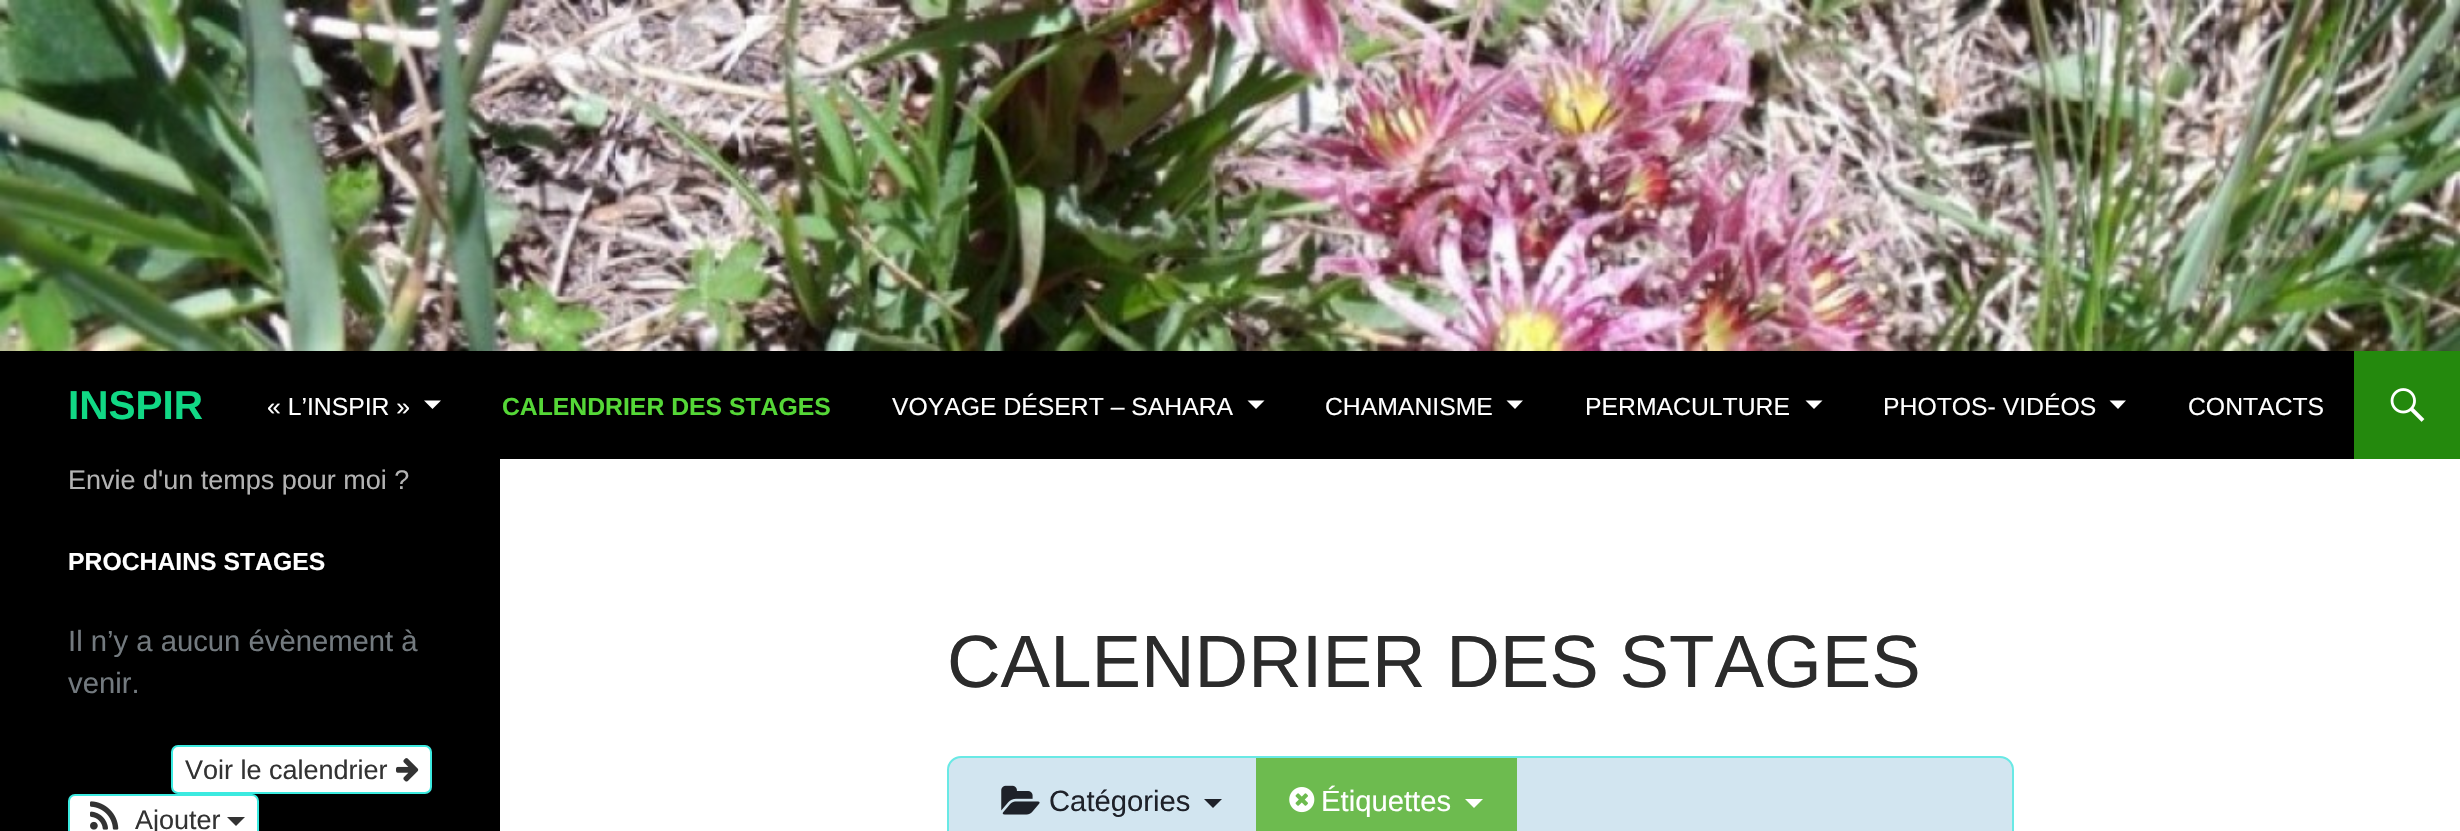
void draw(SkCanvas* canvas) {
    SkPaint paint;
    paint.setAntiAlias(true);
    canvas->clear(0xFFFFFFFF);
    canvas->drawImageRect(SkImages::DeferredFromEncodedData(SkData::MakeFromFileName("img1.png")), SkRect::MakeXYWH(0, 0, 2460, 351), SkSamplingOptions());
    paint.setColor(0xFF000000);
    canvas->drawRect(SkRect::MakeXYWH(0, 351, 2354, 108), paint);
    SkFont font1(fontMgr->matchFamilyStyle("Liberation Sans", SkFontStyle::Bold()), 40.5f);
    font1.setSubpixel(true);
    paint.setColor(0xFF11D885);
    canvas->drawString("INSPIR", 68, 419, font1, paint);
    SkFont font2(fontMgr->matchFamilyStyle("Liberation Sans", SkFontStyle::Normal()), 24.75f);
    font2.setSubpixel(true);
    paint.setColor(0xFFFFFFFF);
    canvas->drawString("« L’INSPIR »", 267, 415, font2, paint);
    canvas->drawPath(SkPathBuilder().moveTo(424, 400.5f).lineTo(432.5f, 409).lineTo(441, 400.5f).close().detach(), paint);
    SkFont font3(fontMgr->matchFamilyStyle("Liberation Sans", SkFontStyle::Bold()), 24.75f);
    font3.setSubpixel(true);
    paint.setColor(0xFF55D737);
    canvas->drawString("CALENDRIER DES STAGES", 502, 415, font3, paint);
    paint.setColor(0xFFFFFFFF);
    canvas->drawString("VOYAGE DÉSERT – SAHARA", 892, 415, font2, paint);
    canvas->drawPath(SkPathBuilder().moveTo(1247.5f, 400.5f).lineTo(1256, 409).lineTo(1264.5f, 400.5f).close().detach(), paint);
    canvas->drawString("CHAMANISME", 1325, 415, font2, paint);
    canvas->drawPath(SkPathBuilder().moveTo(1506.5f, 400.5f).lineTo(1515, 409).lineTo(1523, 400.5f).close().detach(), paint);
    canvas->drawString("PERMACULTURE", 1585, 415, font2, paint);
    canvas->drawPath(SkPathBuilder().moveTo(1805.5f, 400.5f).lineTo(1814, 409).lineTo(1822.5f, 400.5f).close().detach(), paint);
    canvas->drawString("PHOTOS- VIDÉOS", 1883, 415, font2, paint);
    canvas->drawPath(SkPathBuilder().moveTo(2109.5f, 400.5f).lineTo(2118, 409).lineTo(2126, 400.5f).close().detach(), paint);
    canvas->drawString("CONTACTS", 2188, 415, font2, paint);
    paint.setColor(0xFF24890D);
    canvas->drawRect(SkRect::MakeXYWH(2354, 351, 106, 108), paint);
    canvas->drawImageRect(SkImages::DeferredFromEncodedData(SkData::MakeFromFileName("img2.png")), SkRect::MakeXYWH(2390, 388, 35, 34), SkSamplingOptions());
    paint.setColor(0xFF000000);
    canvas->drawRect(SkRect::MakeXYWH(0, 459, 500, 372), paint);
    SkFont font4(fontMgr->matchFamilyStyle("Liberation Sans", SkFontStyle::Normal()), 27);
    font4.setSubpixel(true);
    paint.setColor(0xFFB3B3B3);
    canvas->drawString("Envie d'un temps pour moi ?", 68, 489, font4, paint);
    paint.setColor(0xFFFFFFFF);
    canvas->drawString("PROCHAINS STAGES", 68, 570, font3, paint);
    SkFont font5(fontMgr->matchFamilyStyle("Liberation Sans", SkFontStyle::Normal()), 29.25f);
    font5.setSubpixel(true);
    paint.setColor(0xFF737A7F);
    canvas->drawString("Il n’y a aucun évènement à", 68, 651, font5, paint);
    canvas->drawString("venir.", 68, 693, font5, paint);
    paint.setColor(0xFFFFFFFF);
    canvas->drawRoundRect(SkRect::MakeXYWH(172, 746, 259, 47), 6, 6, paint);
    paint.setStyle(SkPaint::kStroke_Style);
    paint.setStrokeWidth(2);
    paint.setColor(0xFF3CEAE0);
    canvas->drawRoundRect(SkRect::MakeXYWH(172, 746, 259, 47), 6, 6, paint);
    paint.setStyle(SkPaint::kFill_Style);
    paint.setColor(0xFF333333);
    canvas->drawString("Voir le calendrier", 185, 779, font4, paint);
    canvas->drawImageRect(SkImages::DeferredFromEncodedData(SkData::MakeFromFileName("img3.png")), SkRect::MakeXYWH(396, 758, 23, 24), SkSamplingOptions());
    paint.setColor(0xFFFFFFFF);
    canvas->drawRoundRect(SkRect::MakeXYWH(69, 795, 189, 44), 6, 6, paint);
    paint.setStyle(SkPaint::kStroke_Style);
    paint.setColor(0xFF3CEAE0);
    canvas->drawRoundRect(SkRect::MakeXYWH(69, 795, 189, 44), 6, 6, paint);
    canvas->drawImageRect(SkImages::DeferredFromEncodedData(SkData::MakeFromFileName("img4.png")), SkRect::MakeXYWH(90, 801, 29, 29), SkSamplingOptions());
    paint.setStyle(SkPaint::kFill_Style);
    paint.setColor(0xFF333333);
    canvas->drawString("Ajouter", 135, 829, font4, paint);
    canvas->drawPath(SkPathBuilder().moveTo(227, 817).lineTo(245, 817).lineTo(236, 826).close().detach(), paint);
    SkFont font6(fontMgr->matchFamilyStyle("Liberation Sans", SkFontStyle::Normal()), 74.25f);
    font6.setSubpixel(true);
    paint.setColor(0xFF2B2B2B);
    canvas->drawString("CALENDRIER DES STAGES", 947, 687, font6, paint);
    paint.setColor(0xFFD2E5F0);
    canvas->drawRoundRect(SkRect::MakeXYWH(948, 757, 1065, 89), 13, 13, paint);
    paint.setStyle(SkPaint::kStroke_Style);
    paint.setColor(0xFF69E9E5);
    canvas->drawRoundRect(SkRect::MakeXYWH(948, 757, 1065, 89), 13, 13, paint);
    canvas->drawImageRect(SkImages::DeferredFromEncodedData(SkData::MakeFromFileName("img5.png")), SkRect::MakeXYWH(1001, 785, 39, 30), SkSamplingOptions());
    paint.setStyle(SkPaint::kFill_Style);
    paint.setColor(0xFF1E2129);
    canvas->drawString("Catégories", 1049, 811, font5, paint);
    canvas->drawPath(SkPathBuilder().moveTo(1204, 799).lineTo(1222, 799).lineTo(1213, 808).close().detach(), paint);
    paint.setColor(0xFF6DBB4F);
    canvas->drawRect(SkRect::MakeXYWH(1256, 758, 261, 73), paint);
    canvas->drawImageRect(SkImages::DeferredFromEncodedData(SkData::MakeFromFileName("img6.png")), SkRect::MakeXYWH(1289, 787, 26, 26), SkSamplingOptions());
    paint.setColor(0xFFFFFFFF);
    canvas->drawString("Étiquettes", 1321, 811, font5, paint);
    canvas->drawPath(SkPathBuilder().moveTo(1465, 799).lineTo(1483, 799).lineTo(1474, 808).close().detach(), paint);
}
